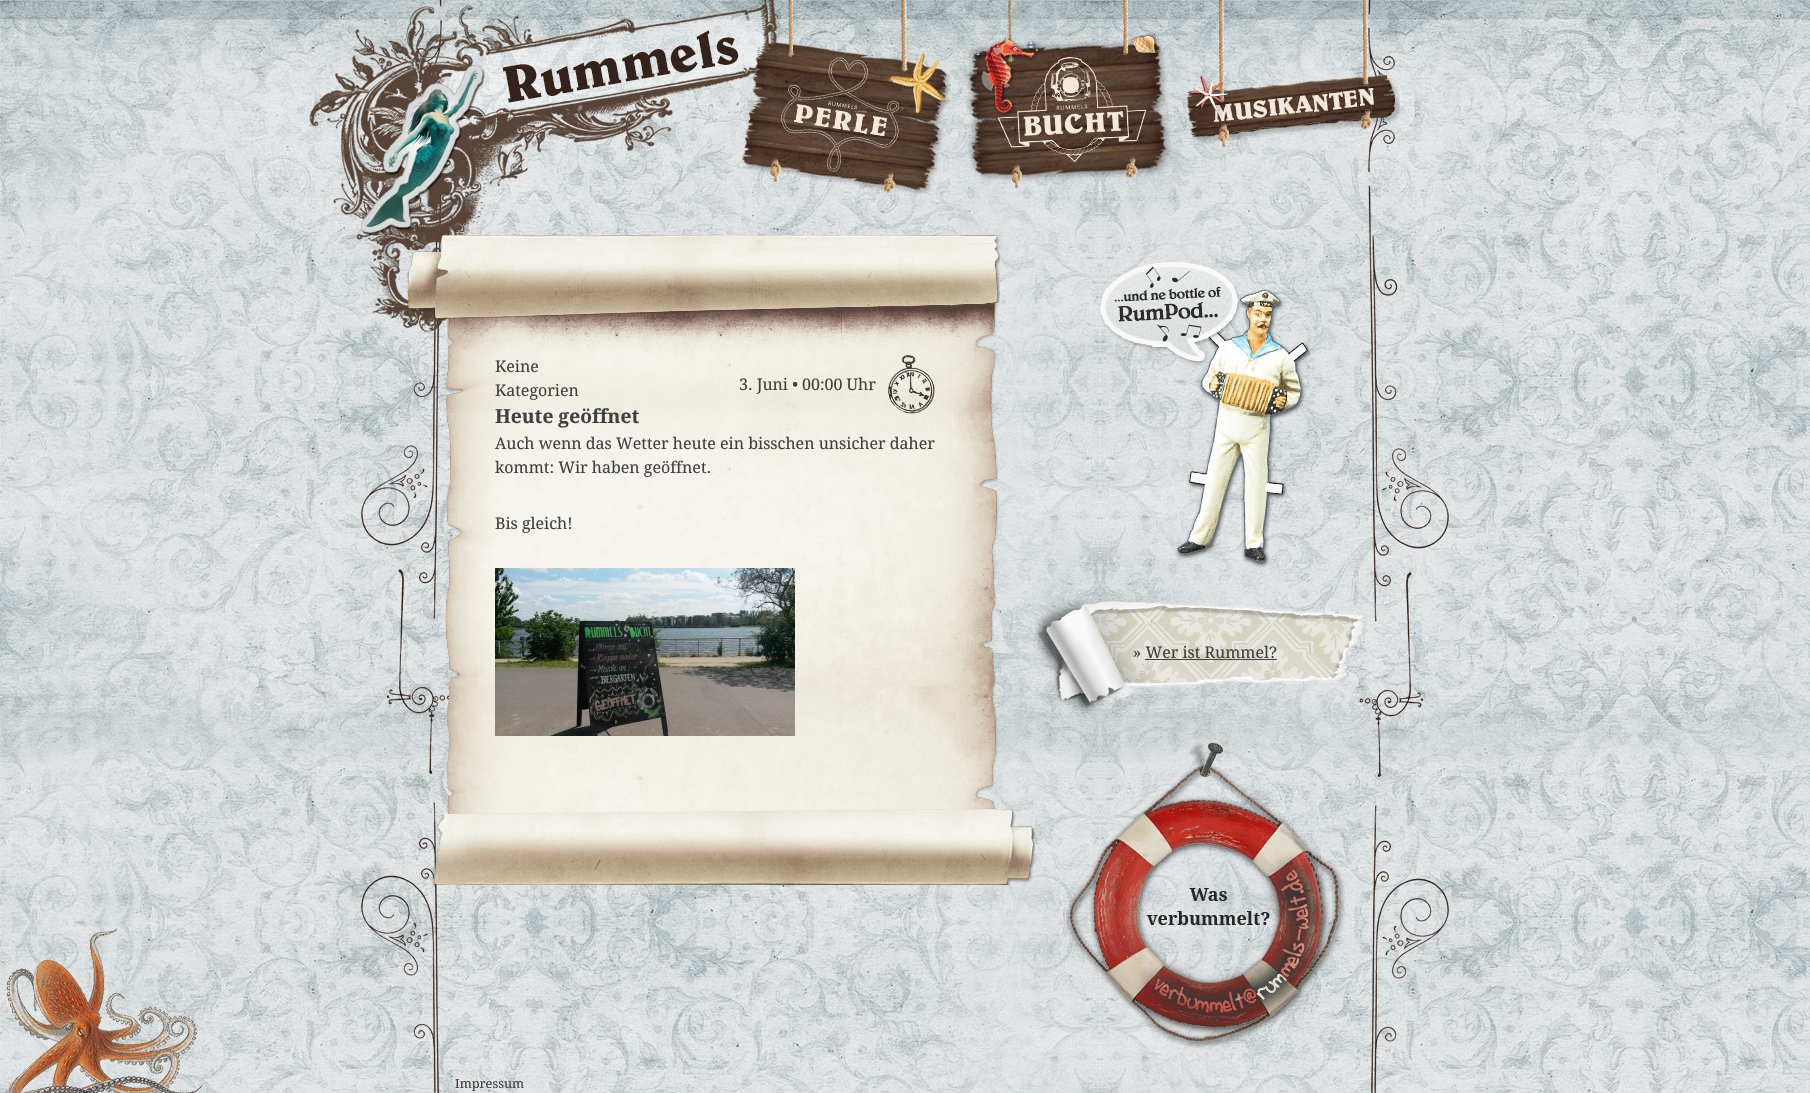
void draw(SkCanvas* canvas) {
    SkPaint paint;
    paint.setAntiAlias(true);
    canvas->clear(0xFFFFFFFF);
    canvas->drawImageRect(SkImages::DeferredFromEncodedData(SkData::MakeFromFileName("img1.png")), SkRect::MakeXYWH(0, 0, 1810, 1093), SkSamplingOptions());
    canvas->drawImageRect(SkImages::DeferredFromEncodedData(SkData::MakeFromFileName("img2.png")), SkRect::MakeXYWH(5, 928, 198, 165), SkSamplingOptions());
    canvas->drawImageRect(SkImages::DeferredFromEncodedData(SkData::MakeFromFileName("img3.png")), SkRect::MakeXYWH(361, 0, 1088, 1093), SkSamplingOptions());
    canvas->drawImageRect(SkImages::DeferredFromEncodedData(SkData::MakeFromFileName("img4.png")), SkRect::MakeXYWH(305, 0, 472, 333), SkSamplingOptions());
    canvas->drawImageRect(SkImages::DeferredFromEncodedData(SkData::MakeFromFileName("img5.png")), SkRect::MakeXYWH(741, 0, 210, 194), SkSamplingOptions());
    canvas->drawImageRect(SkImages::DeferredFromEncodedData(SkData::MakeFromFileName("img6.png")), SkRect::MakeXYWH(964, 0, 208, 188), SkSamplingOptions());
    canvas->drawImageRect(SkImages::DeferredFromEncodedData(SkData::MakeFromFileName("img7.png")), SkRect::MakeXYWH(1183, 0, 217, 148), SkSamplingOptions());
    canvas->drawImageRect(SkImages::DeferredFromEncodedData(SkData::MakeFromFileName("img8.png")), SkRect::MakeXYWH(445, 235, 554, 650), SkSamplingOptions());
    canvas->drawImageRect(SkImages::DeferredFromEncodedData(SkData::MakeFromFileName("img9.png")), SkRect::MakeXYWH(407, 235, 593, 120), SkSamplingOptions());
    SkFont font1(fontMgr->matchFamilyStyle("Droid Serif", SkFontStyle::Normal()), 16);
    font1.setSubpixel(true);
    paint.setColor(0xFF404040);
    canvas->drawString("Keine", 495, 372, font1, paint);
    canvas->drawString("Kategorien", 495, 396, font1, paint);
    canvas->drawImageRect(SkImages::DeferredFromEncodedData(SkData::MakeFromFileName("img10.png")), SkRect::MakeXYWH(888, 355, 47, 59), SkSamplingOptions());
    canvas->drawString("3. Juni • 00:00 Uhr", 739, 390, font1, paint);
    SkFont font2(fontMgr->matchFamilyStyle("Droid Serif", SkFontStyle::Bold()), 19.25f);
    font2.setSubpixel(true);
    canvas->drawString("Heute geöffnet", 495, 423, font2, paint);
    canvas->drawString("Auch wenn das Wetter heute ein bisschen unsicher daher", 495, 449, font1, paint);
    canvas->drawString("kommt: Wir haben geöffnet.", 495, 473, font1, paint);
    canvas->drawString("Bis gleich!", 495, 529, font1, paint);
    canvas->drawImageRect(SkImages::DeferredFromEncodedData(SkData::MakeFromFileName("img11.png")), SkRect::MakeXYWH(495, 568, 300, 168), SkSamplingOptions());
    canvas->drawImageRect(SkImages::DeferredFromEncodedData(SkData::MakeFromFileName("img12.png")), SkRect::MakeXYWH(431, 808, 604, 77), SkSamplingOptions());
    canvas->drawImageRect(SkImages::DeferredFromEncodedData(SkData::MakeFromFileName("img13.png")), SkRect::MakeXYWH(1099, 261, 212, 307), SkSamplingOptions());
    canvas->drawImageRect(SkImages::DeferredFromEncodedData(SkData::MakeFromFileName("img14.png")), SkRect::MakeXYWH(1035, 600, 335, 113), SkSamplingOptions());
    canvas->drawString("» Wer ist Rummel?", 1133, 658, font1, paint);
    canvas->drawRect(SkRect::MakeXYWH(1145, 659, 132, 1), paint);
    canvas->drawImageRect(SkImages::DeferredFromEncodedData(SkData::MakeFromFileName("img15.png")), SkRect::MakeXYWH(1066, 737, 279, 311), SkSamplingOptions());
    SkFont font3(fontMgr->matchFamilyStyle("Droid Serif", SkFontStyle::Normal()), 12.75f);
    font3.setSubpixel(true);
    canvas->drawString("Impressum", 455, 1088, font3, paint);
}
